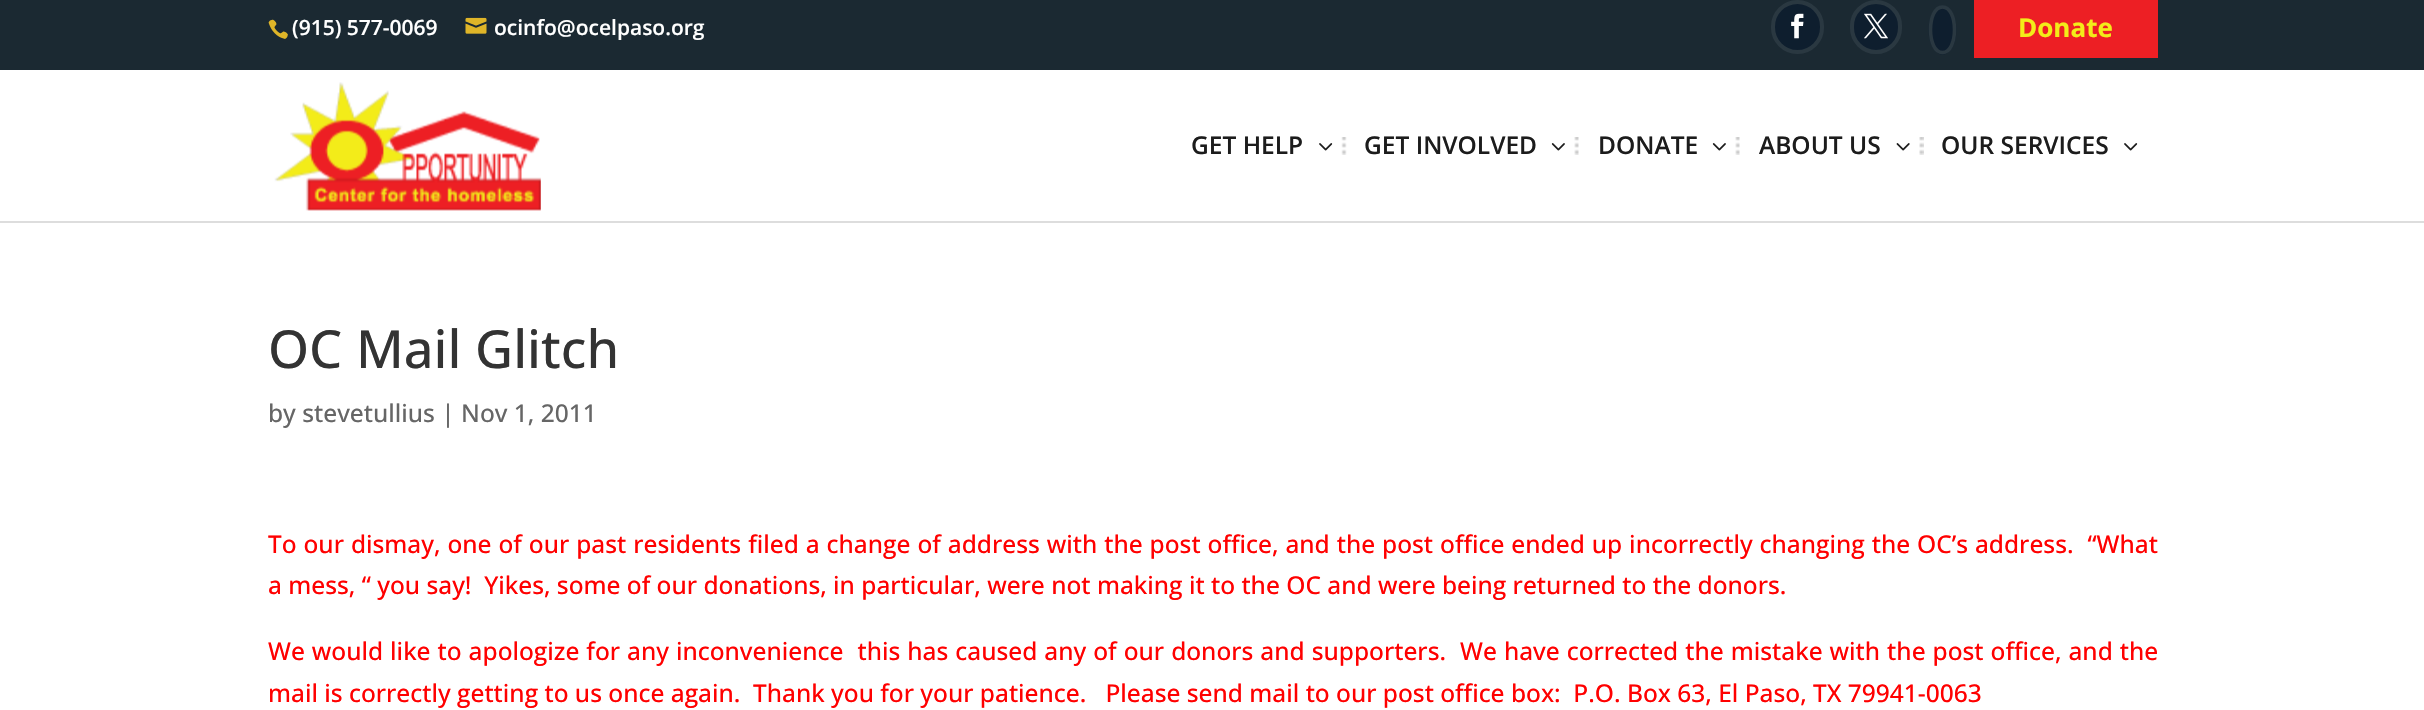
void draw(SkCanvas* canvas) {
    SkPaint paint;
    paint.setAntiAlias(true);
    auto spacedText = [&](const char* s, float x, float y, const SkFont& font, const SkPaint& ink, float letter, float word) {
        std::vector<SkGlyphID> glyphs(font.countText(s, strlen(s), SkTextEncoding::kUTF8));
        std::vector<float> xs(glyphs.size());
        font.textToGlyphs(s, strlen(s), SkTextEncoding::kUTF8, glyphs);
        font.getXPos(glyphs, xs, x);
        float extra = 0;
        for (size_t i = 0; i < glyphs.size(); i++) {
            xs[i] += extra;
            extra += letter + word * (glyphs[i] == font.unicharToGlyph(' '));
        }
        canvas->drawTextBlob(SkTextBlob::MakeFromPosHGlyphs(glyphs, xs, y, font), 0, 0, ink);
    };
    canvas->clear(0xFFFFFFFF);
    paint.setColor(0xFF1B2932);
    canvas->drawRect(SkRect::MakeXYWH(0, 0, 2424, 70), paint);
    canvas->drawImageRect(SkImages::DeferredFromEncodedData(SkData::MakeFromFileName("img1.png")), SkRect::MakeXYWH(268, 19, 20, 20), SkSamplingOptions());
    SkFont font1(fontMgr->matchFamilyStyle("Open Sans", SkFontStyle(600, SkFontStyle::kNormal_Width, SkFontStyle::kUpright_Slant)), 21);
    font1.setSubpixel(true);
    paint.setColor(0xFFFFFFFF);
    canvas->drawString("(915) 577-0069", 292, 35, font1, paint);
    canvas->drawImageRect(SkImages::DeferredFromEncodedData(SkData::MakeFromFileName("img2.png")), SkRect::MakeXYWH(465, 17, 22, 17), SkSamplingOptions());
    canvas->drawString("ocinfo@ocelpaso.org", 494, 35, font1, paint);
    paint.setColor(0xFF0E1E2E);
    canvas->drawRoundRect(SkRect::MakeXYWH(1773, 2, 49, 50), 24.5f, 24.5f, paint);
    paint.setStyle(SkPaint::kStroke_Style);
    paint.setStrokeWidth(4);
    paint.setColor(0xFF2A3841);
    canvas->drawRoundRect(SkRect::MakeXYWH(1773, 2, 49, 50), 24.5f, 24.5f, paint);
    canvas->drawImageRect(SkImages::DeferredFromEncodedData(SkData::MakeFromFileName("img3.png")), SkRect::MakeXYWH(1791, 13, 13, 26), SkSamplingOptions());
    paint.setStyle(SkPaint::kFill_Style);
    paint.setColor(0xFF0E1E2E);
    canvas->drawRoundRect(SkRect::MakeXYWH(1852, 2, 48, 50), 24, 24, paint);
    paint.setStyle(SkPaint::kStroke_Style);
    paint.setColor(0xFF2A3841);
    canvas->drawRoundRect(SkRect::MakeXYWH(1852, 2, 48, 50), 24, 24, paint);
    canvas->drawImageRect(SkImages::DeferredFromEncodedData(SkData::MakeFromFileName("img4.png")), SkRect::MakeXYWH(1864, 13, 24, 26), SkSamplingOptions());
    paint.setStyle(SkPaint::kFill_Style);
    paint.setColor(0xFF0E1E2E);
    canvas->drawOval(SkRect::MakeXYWH(1928.5f, 5.5f, 28, 49), paint);
    paint.setStyle(SkPaint::kStroke_Style);
    paint.setStrokeWidth(3.5f);
    paint.setColor(0xFF2A3841);
    canvas->drawPath(SkPathBuilder().moveTo(1942.5f, 7).cubicTo(1958.5f, 7, 1958.5f, 52.5f, 1942.5f, 52.5f).cubicTo(1926.5f, 52.5f, 1926.5f, 7, 1942.5f, 7).close().detach(), paint);
    paint.setStyle(SkPaint::kFill_Style);
    paint.setColor(0xFFED1F24);
    canvas->drawRect(SkRect::MakeXYWH(1974, 0, 184, 58), paint);
    SkFont font2(fontMgr->matchFamilyStyle("Open Sans", SkFontStyle::Bold()), 26);
    font2.setSubpixel(true);
    paint.setColor(0xFFF3EC19);
    canvas->drawString("Donate", 2018, 37, font2, paint);
    paint.setColor(0xFFDDDDDD);
    canvas->drawRect(SkRect::MakeXYWH(0, 221, 2424, 2), paint);
    canvas->drawImageRect(SkImages::DeferredFromEncodedData(SkData::MakeFromFileName("img5.png")), SkRect::MakeXYWH(274, 82, 267, 129), SkSamplingOptions());
    SkFont font3(fontMgr->matchFamilyStyle("Open Sans", SkFontStyle(600, SkFontStyle::kNormal_Width, SkFontStyle::kUpright_Slant)), 24.5f);
    font3.setSubpixel(true);
    paint.setColor(0xFF1C1C1C);
    canvas->drawString("GET HELP", 1191, 154, font3, paint);
    canvas->drawImageRect(SkImages::DeferredFromEncodedData(SkData::MakeFromFileName("img6.png")), SkRect::MakeXYWH(1319, 143, 14, 8), SkSamplingOptions());
    canvas->drawImageRect(SkImages::DeferredFromEncodedData(SkData::MakeFromFileName("img7.png")), SkRect::MakeXYWH(1341, 137, 6, 18), SkSamplingOptions());
    canvas->drawString("GET INVOLVED", 1364, 154, font3, paint);
    canvas->drawImageRect(SkImages::DeferredFromEncodedData(SkData::MakeFromFileName("img8.png")), SkRect::MakeXYWH(1551, 143, 14, 8), SkSamplingOptions());
    canvas->drawImageRect(SkImages::DeferredFromEncodedData(SkData::MakeFromFileName("img9.png")), SkRect::MakeXYWH(1574, 137, 5, 18), SkSamplingOptions());
    canvas->drawString("DONATE", 1598, 154, font3, paint);
    canvas->drawImageRect(SkImages::DeferredFromEncodedData(SkData::MakeFromFileName("img8.png")), SkRect::MakeXYWH(1712, 143, 14, 8), SkSamplingOptions());
    canvas->drawImageRect(SkImages::DeferredFromEncodedData(SkData::MakeFromFileName("img9.png")), SkRect::MakeXYWH(1735, 137, 5, 18), SkSamplingOptions());
    canvas->drawString("ABOUT US", 1759, 154, font3, paint);
    canvas->drawImageRect(SkImages::DeferredFromEncodedData(SkData::MakeFromFileName("img10.png")), SkRect::MakeXYWH(1896, 143, 14, 8), SkSamplingOptions());
    canvas->drawImageRect(SkImages::DeferredFromEncodedData(SkData::MakeFromFileName("img11.png")), SkRect::MakeXYWH(1919, 137, 5, 18), SkSamplingOptions());
    canvas->drawString("OUR SERVICES", 1941, 154, font3, paint);
    canvas->drawImageRect(SkImages::DeferredFromEncodedData(SkData::MakeFromFileName("img6.png")), SkRect::MakeXYWH(2124, 143, 14, 8), SkSamplingOptions());
    SkFont font4(fontMgr->matchFamilyStyle("Open Sans", SkFontStyle(500, SkFontStyle::kNormal_Width, SkFontStyle::kUpright_Slant)), 52.5f);
    font4.setSubpixel(true);
    paint.setColor(0xFF333333);
    canvas->drawString("OC Mail Glitch", 268, 368, font4, paint);
    SkFont font5(fontMgr->matchFamilyStyle("Open Sans", SkFontStyle(500, SkFontStyle::kNormal_Width, SkFontStyle::kUpright_Slant)), 24.5f);
    font5.setSubpixel(true);
    paint.setColor(0xFF666666);
    canvas->drawString("by stevetullius | Nov 1, 2011", 268, 422, font5, paint);
    paint.setColor(0xFFFF0000);
    spacedText("To our dismay, one of our past residents filed a change of address with the post office, and the post office ended up incorrectly changing the OC’s address.  “What", 268, 553, font5, paint, 0, 0.6f);
    canvas->drawString("a mess, “ you say!  Yikes, some of our donations, in particular, were not making it to the OC and were being returned to the donors.", 268, 594, font5, paint);
    spacedText("We would like to apologize for any inconvenience  this has caused any of our donors and supporters.  We have corrected the mistake with the post office, and the", 268, 660, font5, paint, 0, 0.65f);
    canvas->drawString("mail is correctly getting to us once again.  Thank you for your patience.   Please send mail to our post office box:  P.O. Box 63, El Paso, TX 79941-0063", 268, 702, font5, paint);
}
